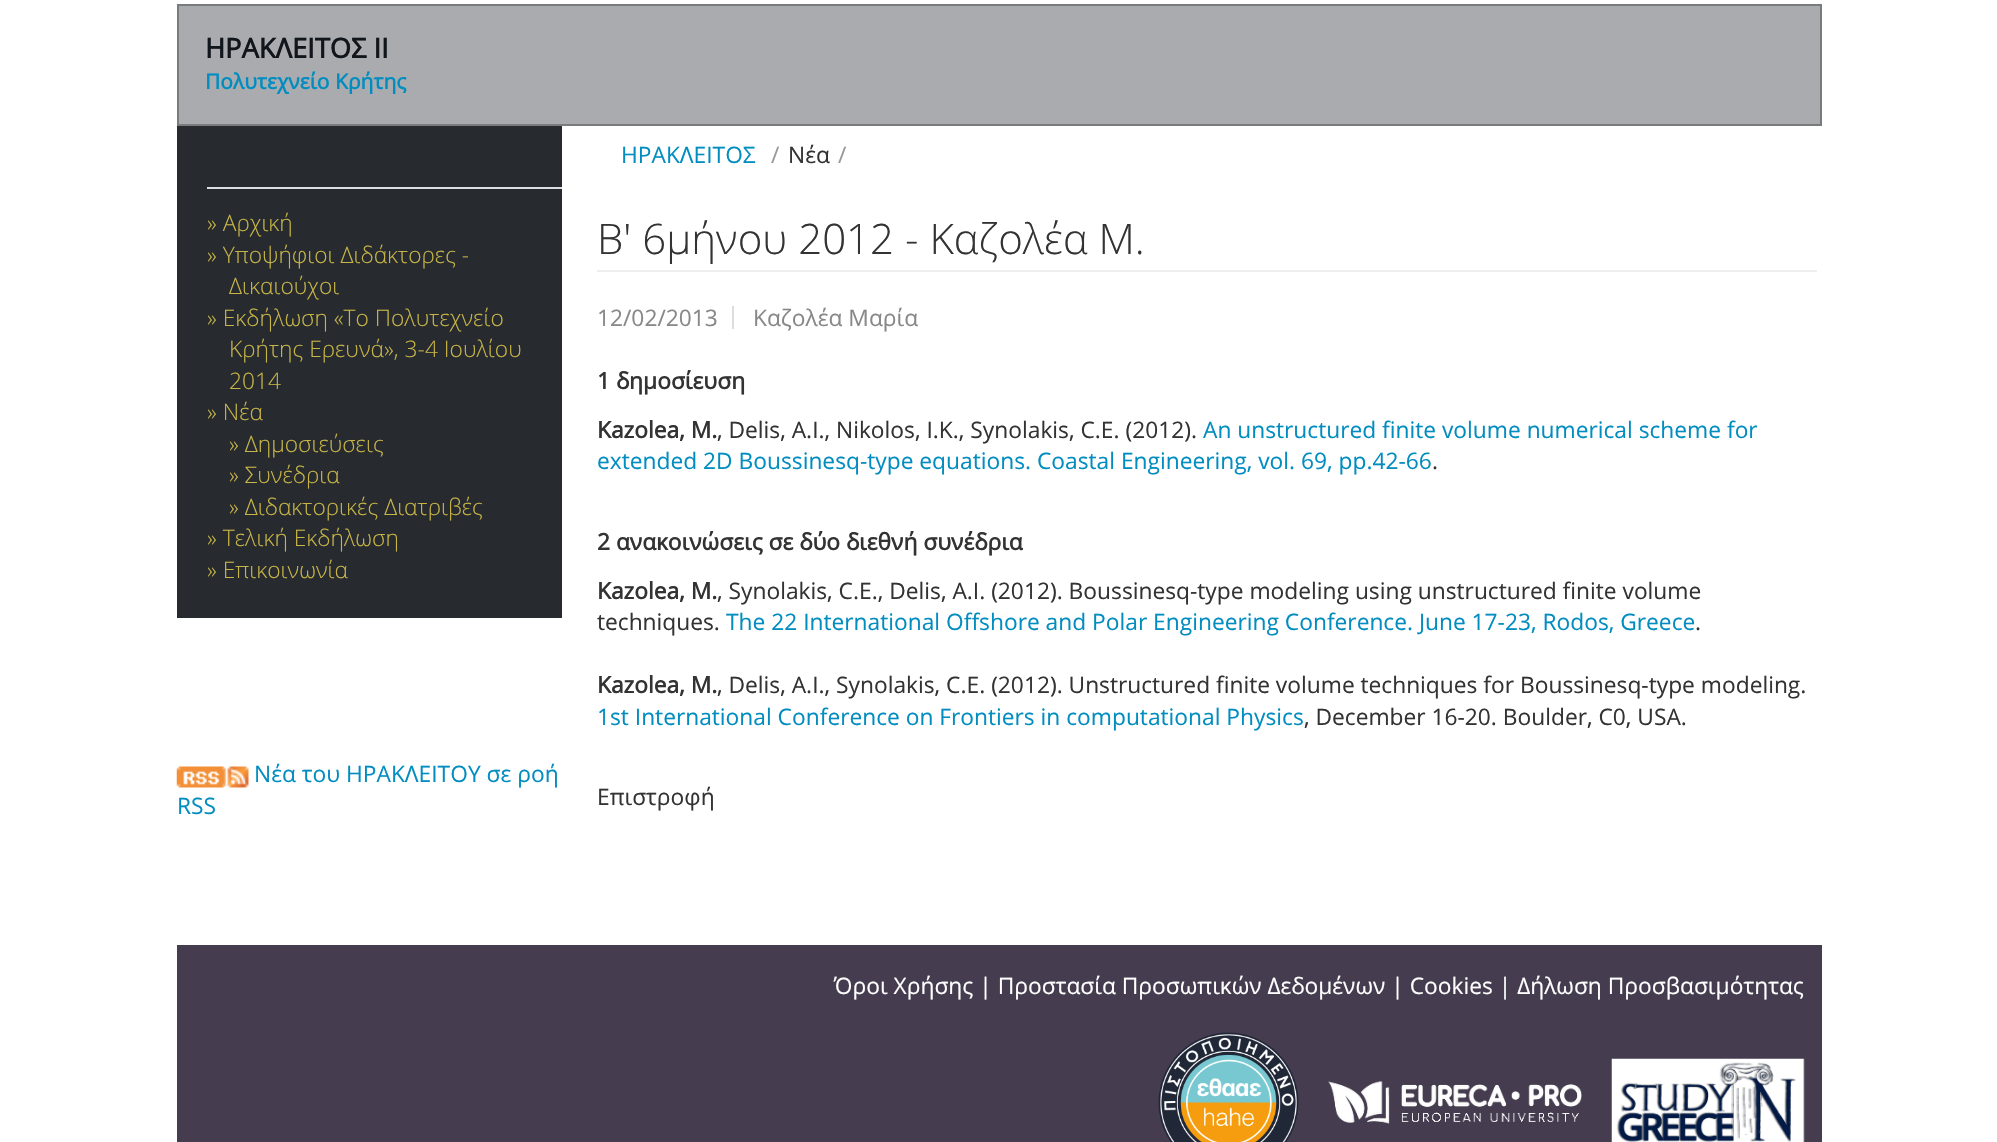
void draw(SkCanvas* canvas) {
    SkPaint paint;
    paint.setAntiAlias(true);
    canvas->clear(0xFFFFFFFF);
    paint.setColor(0xFFA9ABAE);
    canvas->drawRect(SkRect::MakeXYWH(178, 5, 1643, 120), paint);
    paint.setStyle(SkPaint::kStroke_Style);
    paint.setStrokeWidth(2);
    paint.setColor(0xFF797B7D);
    canvas->drawRect(SkRect::MakeXYWH(178, 5, 1643, 120), paint);
    SkFont font1(fontMgr->matchFamilyStyle("Open Sans", SkFontStyle::Bold()), 27.25f);
    font1.setSubpixel(true);
    paint.setStyle(SkPaint::kFill_Style);
    paint.setColor(0xFF11151C);
    canvas->drawString("ΗΡΑΚΛΕΙΤΟΣ ΙΙ", 205, 58, font1, paint);
    SkFont font2(fontMgr->matchFamilyStyle("Open Sans", SkFontStyle::Bold()), 21);
    font2.setSubpixel(true);
    paint.setColor(0xFF028DC0);
    canvas->drawString("Πολυτεχνείο Κρήτης", 205, 89, font2, paint);
    paint.setColor(0xFF272A2F);
    canvas->drawRect(SkRect::MakeXYWH(177, 126, 385, 492), paint);
    paint.setColor(0xFFDBDFE2);
    canvas->drawRect(SkRect::MakeXYWH(207, 187, 355, 2), paint);
    SkFont font3(fontMgr->matchFamilyStyle("Open Sans", SkFontStyle(300, SkFontStyle::kNormal_Width, SkFontStyle::kUpright_Slant)), 22.75f);
    font3.setSubpixel(true);
    paint.setColor(0xFFC7B547);
    canvas->drawString("» Αρχική", 207, 231, font3, paint);
    canvas->drawString("» Υποψήφιοι Διδάκτορες -", 207, 263, font3, paint);
    canvas->drawString("Δικαιούχοι", 229, 294, font3, paint);
    canvas->drawString("» Εκδήλωση «Το Πολυτεχνείο", 207, 326, font3, paint);
    canvas->drawString("Κρήτης Ερευνά», 3-4 Ιουλίου", 229, 357, font3, paint);
    canvas->drawString("2014", 229, 389, font3, paint);
    canvas->drawString("» Νέα", 207, 420, font3, paint);
    canvas->drawString("» Δημοσιεύσεις", 229, 452, font3, paint);
    canvas->drawString("» Συνέδρια", 229, 483, font3, paint);
    canvas->drawString("» Διδακτορικές Διατριβές", 229, 515, font3, paint);
    canvas->drawString("» Τελική Εκδήλωση", 207, 546, font3, paint);
    canvas->drawString("» Επικοινωνία", 207, 578, font3, paint);
    canvas->drawImageRect(SkImages::DeferredFromEncodedData(SkData::MakeFromFileName("img1.png")), SkRect::MakeXYWH(176, 766, 73, 22), SkSamplingOptions());
    SkFont font4(fontMgr->matchFamilyStyle("Open Sans", SkFontStyle::Normal()), 22.75f);
    font4.setSubpixel(true);
    paint.setColor(0xFF028DC0);
    canvas->drawString("Νέα του ΗΡΑΚΛΕΙΤΟΥ σε ροή", 254, 782, font4, paint);
    canvas->drawString("RSS", 177, 814, font4, paint);
    canvas->drawString("ΗΡΑΚΛΕΙΤΟΣ", 621, 163, font4, paint);
    paint.setColor(0xFF999999);
    canvas->drawString("/", 771, 163, font4, paint);
    paint.setColor(0xFF333333);
    canvas->drawString("Νέα", 788, 163, font4, paint);
    paint.setColor(0xFF999999);
    canvas->drawString("/", 838, 163, font4, paint);
    SkFont font5(fontMgr->matchFamilyStyle("Open Sans", SkFontStyle(300, SkFontStyle::kNormal_Width, SkFontStyle::kUpright_Slant)), 42);
    font5.setSubpixel(true);
    paint.setColor(0xFF333333);
    canvas->drawString("Β' 6μήνου 2012 - Καζολέα Μ.", 597, 254, font5, paint);
    paint.setColor(0xFFEEEEEE);
    canvas->drawRect(SkRect::MakeXYWH(597, 270, 1220, 2), paint);
    paint.setColor(0xFFDDDDDD);
    canvas->drawRect(SkRect::MakeXYWH(732, 306, 2, 23), paint);
    paint.setColor(0xFF888888);
    canvas->drawString("12/02/2013", 597, 326, font4, paint);
    canvas->drawString("Καζολέα Μαρία", 753, 326, font4, paint);
    SkFont font6(fontMgr->matchFamilyStyle("Open Sans", SkFontStyle::Bold()), 22.75f);
    font6.setSubpixel(true);
    paint.setColor(0xFF333333);
    canvas->drawString("1 δημοσίευση", 597, 389, font6, paint);
    canvas->drawString("Kazolea, M.", 597, 438, font6, paint);
    canvas->drawString(", Delis, A.I., Nikolos, I.K., Synolakis, C.E. (2012).", 717, 438, font4, paint);
    paint.setColor(0xFF028DC0);
    canvas->drawString("An unstructured finite volume numerical scheme for", 1203, 438, font4, paint);
    canvas->drawString("extended 2D Boussinesq-type equations. Coastal Engineering, vol. 69, pp.42-66", 597, 469, font4, paint);
    paint.setColor(0xFF333333);
    canvas->drawString(".", 1432, 469, font4, paint);
    canvas->drawString("2 ανακοινώσεις σε δύο διεθνή συνέδρια", 597, 550, font6, paint);
    canvas->drawString("Kazolea, M.", 597, 599, font6, paint);
    canvas->drawString(", Synolakis, C.E., Delis, A.I. (2012). Boussinesq-type modeling using unstructured finite volume", 717, 599, font4, paint);
    canvas->drawString("techniques.", 597, 630, font4, paint);
    paint.setColor(0xFF028DC0);
    canvas->drawString("The 22 International Offshore and Polar Engineering Conference. June 17-23, Rodos, Greece", 726, 630, font4, paint);
    paint.setColor(0xFF333333);
    canvas->drawString(".", 1695, 630, font4, paint);
    canvas->drawString("Kazolea, M.", 597, 693, font6, paint);
    canvas->drawString(", Delis, A.I., Synolakis, C.E. (2012). Unstructured finite volume techniques for Boussinesq-type modeling.", 717, 693, font4, paint);
    paint.setColor(0xFF028DC0);
    canvas->drawString("1st International Conference on Frontiers in computational Physics", 597, 725, font4, paint);
    paint.setColor(0xFF333333);
    canvas->drawString(", December 16-20. Boulder, C0, USA.", 1304, 725, font4, paint);
    canvas->drawString("Επιστροφή", 597, 805, font4, paint);
    paint.setColor(0xFF453C50);
    canvas->drawRect(SkRect::MakeXYWH(177, 945, 1645, 197), paint);
    paint.setColor(0xFFFFFFFF);
    canvas->drawString("Όροι Χρήσης | Προστασία Προσωπικών Δεδομένων | Cookies | Δήλωση Προσβασιμότητας", 834, 994, font4, paint);
    canvas->drawImageRect(SkImages::DeferredFromEncodedData(SkData::MakeFromFileName("img2.png")), SkRect::MakeXYWH(1158, 1032, 141, 110), SkSamplingOptions());
    canvas->drawImageRect(SkImages::DeferredFromEncodedData(SkData::MakeFromFileName("img3.png")), SkRect::MakeXYWH(1328, 1081, 254, 43), SkSamplingOptions());
    canvas->drawImageRect(SkImages::DeferredFromEncodedData(SkData::MakeFromFileName("img4.png")), SkRect::MakeXYWH(1611, 1058, 194, 84), SkSamplingOptions());
}
